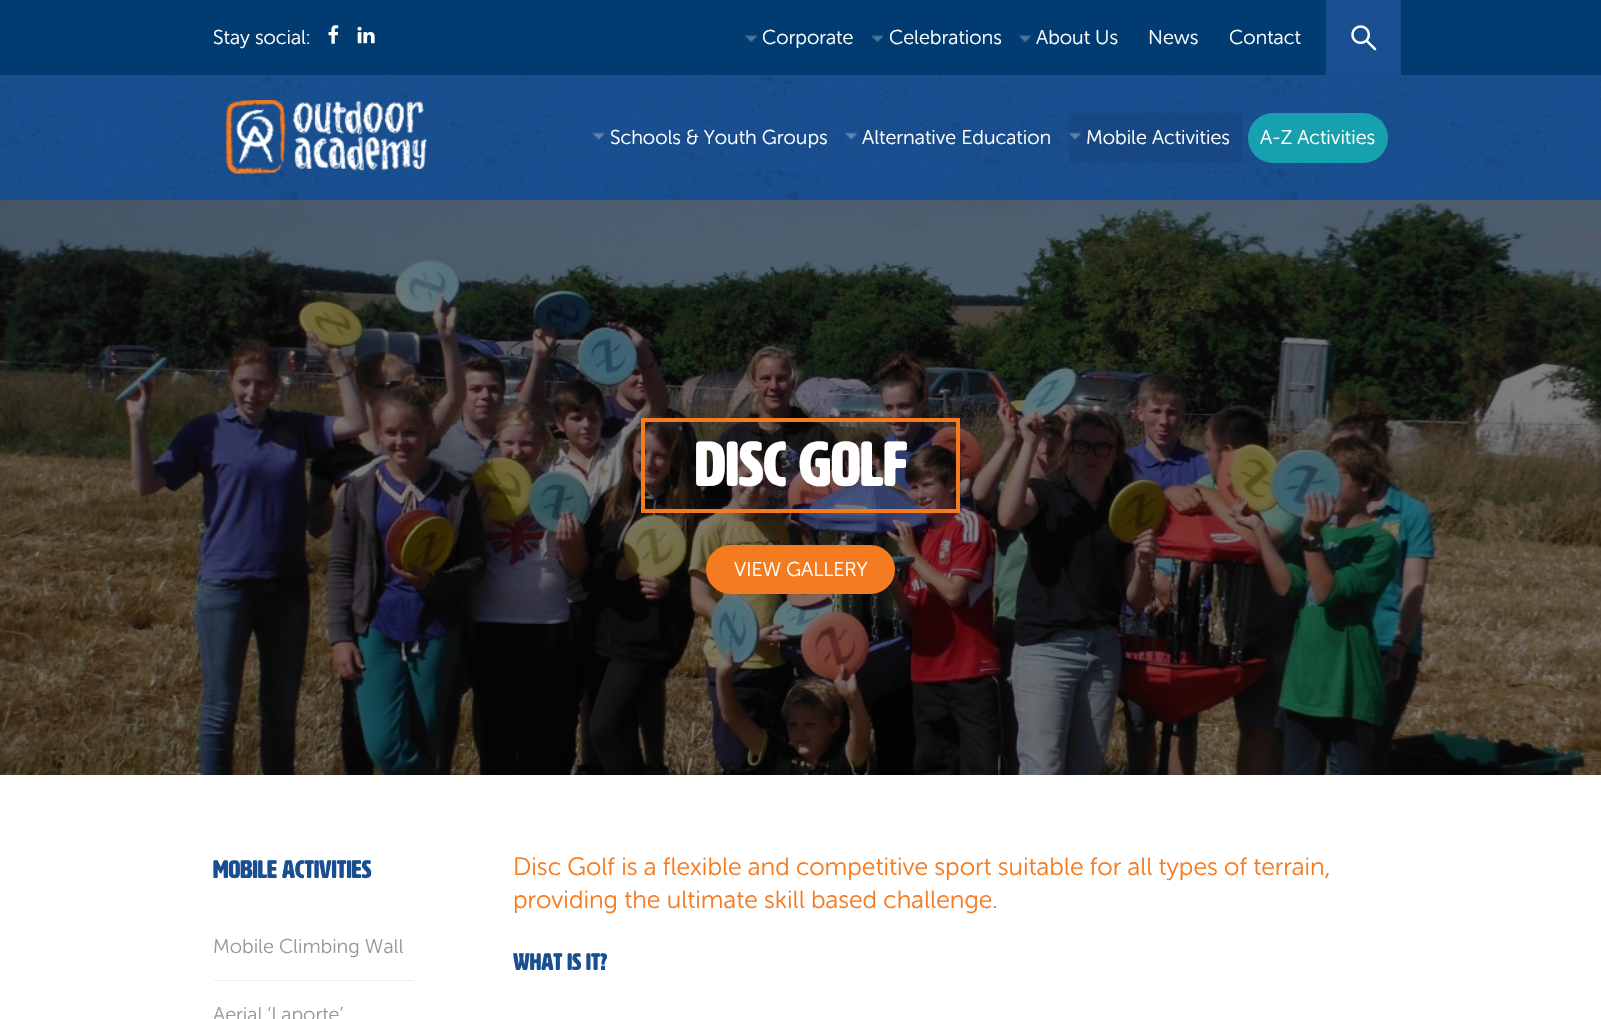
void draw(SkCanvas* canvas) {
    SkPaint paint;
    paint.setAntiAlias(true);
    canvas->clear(0xFFFFFFFF);
    canvas->drawImageRect(SkImages::DeferredFromEncodedData(SkData::MakeFromFileName("img1.png")), SkRect::MakeXYWH(0, 75, 1601, 125), SkSamplingOptions());
    paint.setColor(0xFF003C71);
    canvas->drawRect(SkRect::MakeXYWH(0, 0, 1601, 75), paint);
    SkFont font1(fontMgr->matchFamilyStyle("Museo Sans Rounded", SkFontStyle(300, SkFontStyle::kNormal_Width, SkFontStyle::kUpright_Slant)), 20);
    font1.setSubpixel(true);
    paint.setColor(0xFFFFFFFF);
    canvas->drawString("Stay social:", 213, 44, font1, paint);
    canvas->drawImageRect(SkImages::DeferredFromEncodedData(SkData::MakeFromFileName("img2.png")), SkRect::MakeXYWH(328, 25, 11, 19), SkSamplingOptions());
    canvas->drawImageRect(SkImages::DeferredFromEncodedData(SkData::MakeFromFileName("img3.png")), SkRect::MakeXYWH(357, 26, 18, 18), SkSamplingOptions());
    canvas->drawImageRect(SkImages::DeferredFromEncodedData(SkData::MakeFromFileName("img4.png")), SkRect::MakeXYWH(745, 35, 13, 8), SkSamplingOptions());
    canvas->drawString("Corporate", 762, 44, font1, paint);
    canvas->drawImageRect(SkImages::DeferredFromEncodedData(SkData::MakeFromFileName("img5.png")), SkRect::MakeXYWH(871, 35, 13, 8), SkSamplingOptions());
    canvas->drawString("Celebrations", 889, 44, font1, paint);
    canvas->drawImageRect(SkImages::DeferredFromEncodedData(SkData::MakeFromFileName("img6.png")), SkRect::MakeXYWH(1018, 35, 14, 8), SkSamplingOptions());
    canvas->drawString("About Us", 1036, 44, font1, paint);
    canvas->drawString("News", 1148, 44, font1, paint);
    canvas->drawString("Contact", 1229, 44, font1, paint);
    paint.setColor(0xFF194F90);
    canvas->drawRect(SkRect::MakeXYWH(1326, 0, 75, 75), paint);
    canvas->drawImageRect(SkImages::DeferredFromEncodedData(SkData::MakeFromFileName("img7.png")), SkRect::MakeXYWH(1351, 25, 26, 26), SkSamplingOptions());
    canvas->drawImageRect(SkImages::DeferredFromEncodedData(SkData::MakeFromFileName("img8.png")), SkRect::MakeXYWH(226, 100, 201, 74), SkSamplingOptions());
    canvas->drawImageRect(SkImages::DeferredFromEncodedData(SkData::MakeFromFileName("img9.png")), SkRect::MakeXYWH(592, 132, 13, 8), SkSamplingOptions());
    paint.setColor(0xFFFFFFFF);
    canvas->drawString("Schools & Youth Groups", 610, 144, font1, paint);
    canvas->drawImageRect(SkImages::DeferredFromEncodedData(SkData::MakeFromFileName("img10.png")), SkRect::MakeXYWH(845, 132, 13, 8), SkSamplingOptions());
    canvas->drawString("Alternative Education", 862, 144, font1, paint);
    paint.setColor(0xFF174883);
    canvas->drawRect(SkRect::MakeXYWH(1069, 113, 174, 50), paint);
    canvas->drawImageRect(SkImages::DeferredFromEncodedData(SkData::MakeFromFileName("img11.png")), SkRect::MakeXYWH(1069, 132, 12, 8), SkSamplingOptions());
    paint.setColor(0xFFFFFFFF);
    canvas->drawString("Mobile Activities", 1086, 144, font1, paint);
    paint.setColor(0xFF17A1AF);
    canvas->drawRoundRect(SkRect::MakeXYWH(1248, 113, 140, 50), 25, 25, paint);
    paint.setColor(0xFFFFFFFF);
    canvas->drawString("A-Z Activities", 1260, 144, font1, paint);
    canvas->drawImageRect(SkImages::DeferredFromEncodedData(SkData::MakeFromFileName("img12.png")), SkRect::MakeXYWH(0, 200, 1601, 575), SkSamplingOptions());
    paint.setStyle(SkPaint::kStroke_Style);
    paint.setStrokeWidth(4);
    paint.setColor(0xFFF57B20);
    canvas->drawRect(SkRect::MakeXYWH(643, 420, 315, 91), paint);
    SkFont font2(fontMgr->matchFamilyStyle("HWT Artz", SkFontStyle::Bold()), 62.5f);
    font2.setSubpixel(true);
    paint.setStyle(SkPaint::kFill_Style);
    paint.setColor(0xFFFFFFFF);
    canvas->drawString("DISC GOLF", 695, 486, font2, paint);
    paint.setColor(0xFFF57B20);
    canvas->drawRoundRect(SkRect::MakeXYWH(707.5f, 546.5f, 186, 46), 23, 23, paint);
    paint.setStyle(SkPaint::kStroke_Style);
    paint.setStrokeWidth(3);
    canvas->drawRoundRect(SkRect::MakeXYWH(707.5f, 546.5f, 186, 46), 23, 23, paint);
    paint.setStyle(SkPaint::kFill_Style);
    paint.setColor(0xFFFFFFFF);
    canvas->drawString("VIEW GALLERY", 734, 576, font1, paint);
    SkFont font3(fontMgr->matchFamilyStyle("HWT Artz", SkFontStyle::Bold()), 25);
    font3.setSubpixel(true);
    paint.setColor(0xFF194F90);
    canvas->drawString("Mobile Activities", 213, 878, font3, paint);
    paint.setColor(0xFFEFEDEA);
    canvas->drawRect(SkRect::MakeXYWH(214, 980, 200, 1), paint);
    paint.setColor(0xFF999999);
    canvas->drawString("Mobile Climbing Wall", 213, 953, font1, paint);
    canvas->drawString("Aerial ‘Laporte’", 213, 1021, font1, paint);
    SkFont font4(fontMgr->matchFamilyStyle("Museo Sans Rounded", SkFontStyle(300, SkFontStyle::kNormal_Width, SkFontStyle::kUpright_Slant)), 25);
    font4.setSubpixel(true);
    paint.setColor(0xFFF57B20);
    canvas->drawString("Disc Golf is a flexible and competitive sport suitable for all types of terrain,", 513, 875, font4, paint);
    canvas->drawString("providing the ultimate skill based challenge.", 513, 908, font4, paint);
    SkFont font5(fontMgr->matchFamilyStyle("HWT Artz", SkFontStyle::Bold()), 23.5f);
    font5.setSubpixel(true);
    paint.setColor(0xFF194F90);
    canvas->drawString("WHAT IS IT?", 513, 970, font5, paint);
}
